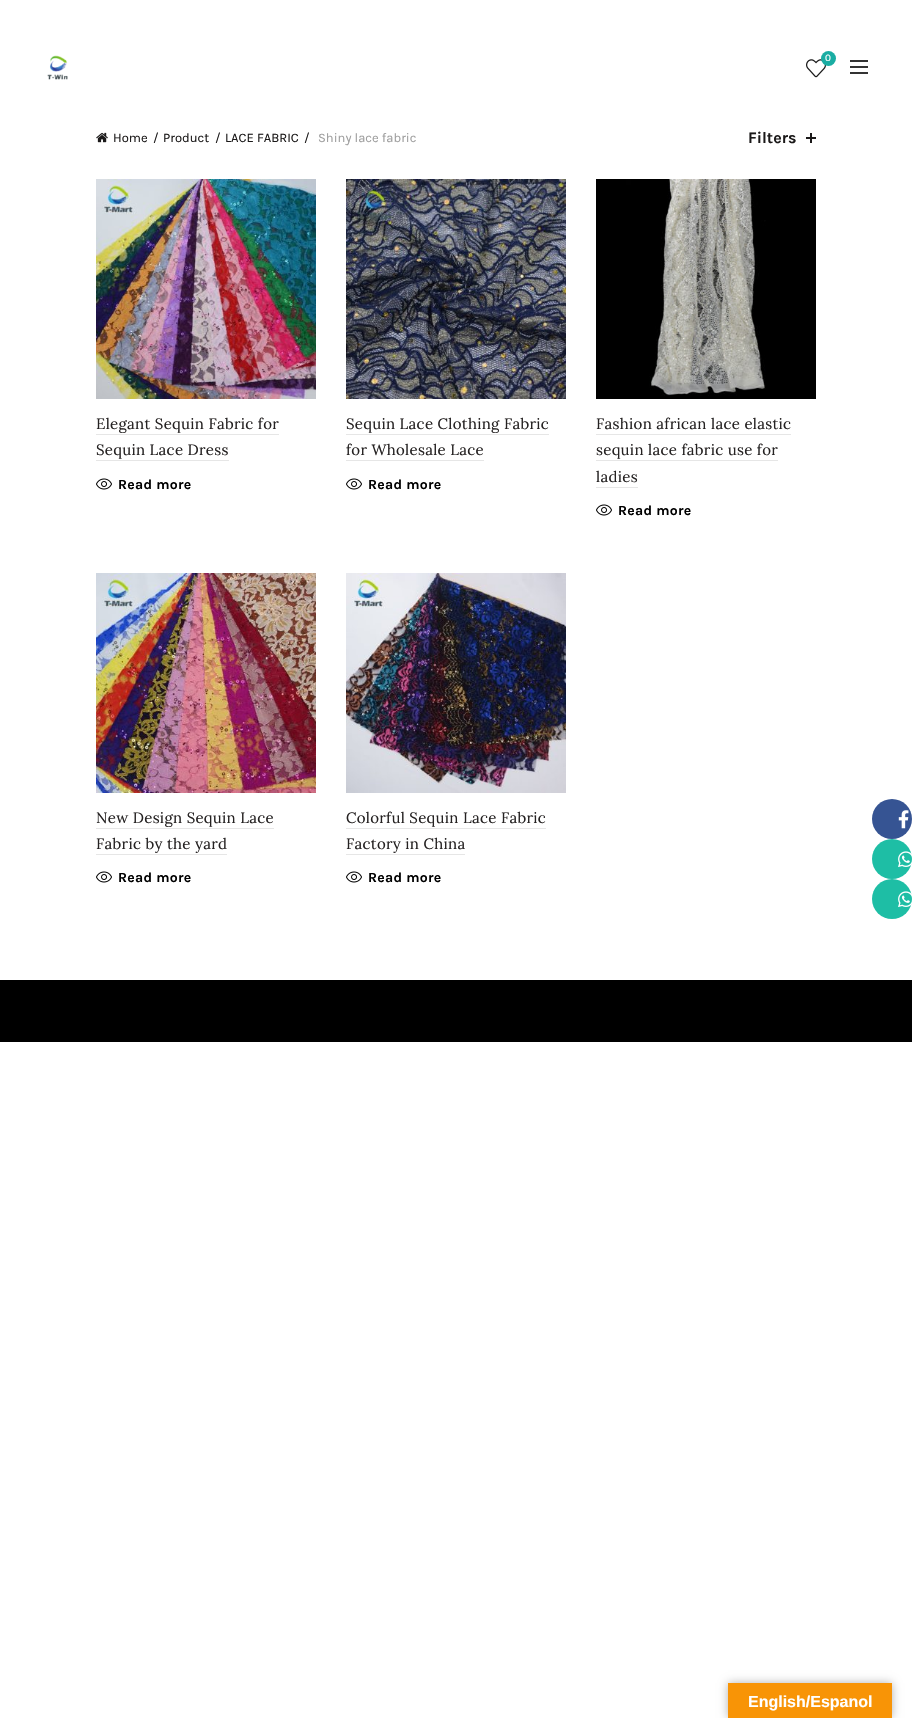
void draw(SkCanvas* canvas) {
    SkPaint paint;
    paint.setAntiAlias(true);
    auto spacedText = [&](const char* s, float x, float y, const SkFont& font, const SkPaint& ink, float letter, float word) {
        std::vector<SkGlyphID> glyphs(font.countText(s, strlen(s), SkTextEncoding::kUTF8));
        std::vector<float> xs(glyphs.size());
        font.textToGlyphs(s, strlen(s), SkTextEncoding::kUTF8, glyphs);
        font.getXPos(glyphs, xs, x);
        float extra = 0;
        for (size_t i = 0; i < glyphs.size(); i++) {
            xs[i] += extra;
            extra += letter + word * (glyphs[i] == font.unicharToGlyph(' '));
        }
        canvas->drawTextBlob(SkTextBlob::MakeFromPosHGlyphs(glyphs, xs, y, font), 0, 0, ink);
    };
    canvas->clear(0xFFFFFFFF);
    canvas->drawImageRect(SkImages::DeferredFromEncodedData(SkData::MakeFromFileName("img1.png")), SkRect::MakeXYWH(47, 55, 21, 25), SkSamplingOptions());
    canvas->drawImageRect(SkImages::DeferredFromEncodedData(SkData::MakeFromFileName("img2.png")), SkRect::MakeXYWH(806, 59, 20, 19), SkSamplingOptions());
    paint.setColor(0xFF1AADA3);
    canvas->drawCircle(828.5f, 58.5f, 7.5f, paint);
    SkFont font1(fontMgr->matchFamilyStyle("Karla", SkFontStyle::Normal()), 10);
    font1.setSubpixel(true);
    paint.setColor(0xFFFFFFFF);
    canvas->drawString("0", 825, 61, font1, paint);
    paint.setColor(0xFF333333);
    canvas->drawRect(SkRect::MakeXYWH(850, 66, 18, 2), paint);
    canvas->drawRect(SkRect::MakeXYWH(850, 60, 18, 2), paint);
    canvas->drawRect(SkRect::MakeXYWH(850, 72, 18, 2), paint);
    canvas->drawImageRect(SkImages::DeferredFromEncodedData(SkData::MakeFromFileName("img3.png")), SkRect::MakeXYWH(96, 132, 12, 11), SkSamplingOptions());
    SkFont font2(fontMgr->matchFamilyStyle("Karla", SkFontStyle::Normal()), 13);
    font2.setSubpixel(true);
    paint.setColor(0xFF1B1919);
    canvas->drawString("Home", 113, 142, font2, paint);
    canvas->drawString("/", 153, 142, font2, paint);
    canvas->drawString("Product", 163, 142, font2, paint);
    canvas->drawString("/", 215, 142, font2, paint);
    canvas->drawString("LACE FABRIC", 225, 142, font2, paint);
    canvas->drawString("/", 304, 142, font2, paint);
    paint.setColor(0xFF9E9E9E);
    canvas->drawString("Shiny lace fabric", 318, 142, font2, paint);
    SkFont font3(fontMgr->matchFamilyStyle("Karla", SkFontStyle::Bold()), 16);
    font3.setSubpixel(true);
    paint.setColor(0xFF1B1919);
    canvas->drawString("Filters", 748, 143, font3, paint);
    canvas->drawRect(SkRect::MakeXYWH(810, 133, 2, 10), paint);
    canvas->drawRect(SkRect::MakeXYWH(806, 137, 10, 2), paint);
    canvas->drawImageRect(SkImages::DeferredFromEncodedData(SkData::MakeFromFileName("img4.png")), SkRect::MakeXYWH(96, 179, 220, 220), SkSamplingOptions());
    SkFont font4(fontMgr->matchFamilyStyle("Lora", SkFontStyle::Normal()), 15);
    font4.setSubpixel(true);
    paint.setColor(0xFF252222);
    spacedText("Elegant Sequin Fabric for", 96, 429, font4, paint, 0.3f, 0);
    paint.setColor(0xFFE6E6E6);
    canvas->drawRect(SkRect::MakeXYWH(96, 434, 183, 1), paint);
    paint.setColor(0xFF252222);
    spacedText("Sequin Lace Dress", 96, 455, font4, paint, 0.3f, 0);
    paint.setColor(0xFFE6E6E6);
    canvas->drawRect(SkRect::MakeXYWH(96, 460, 133, 1), paint);
    canvas->drawImageRect(SkImages::DeferredFromEncodedData(SkData::MakeFromFileName("img5.png")), SkRect::MakeXYWH(96, 478, 16, 12), SkSamplingOptions());
    SkFont font5(fontMgr->matchFamilyStyle("Karla", SkFontStyle::Bold()), 14);
    font5.setSubpixel(true);
    paint.setColor(0xFF000000);
    spacedText("Read more", 118, 489, font5, paint, 0.3f, 0);
    canvas->drawImageRect(SkImages::DeferredFromEncodedData(SkData::MakeFromFileName("img6.png")), SkRect::MakeXYWH(346, 179, 220, 220), SkSamplingOptions());
    paint.setColor(0xFF252222);
    spacedText("Sequin Lace Clothing Fabric", 346, 429, font4, paint, 0.3f, 0);
    paint.setColor(0xFFE6E6E6);
    canvas->drawRect(SkRect::MakeXYWH(346, 434, 203, 1), paint);
    paint.setColor(0xFF252222);
    spacedText("for Wholesale Lace", 346, 455, font4, paint, 0.3f, 0);
    paint.setColor(0xFFE6E6E6);
    canvas->drawRect(SkRect::MakeXYWH(346, 460, 138, 1), paint);
    canvas->drawImageRect(SkImages::DeferredFromEncodedData(SkData::MakeFromFileName("img5.png")), SkRect::MakeXYWH(346, 478, 16, 12), SkSamplingOptions());
    paint.setColor(0xFF000000);
    spacedText("Read more", 368, 489, font5, paint, 0.3f, 0);
    canvas->drawImageRect(SkImages::DeferredFromEncodedData(SkData::MakeFromFileName("img7.png")), SkRect::MakeXYWH(596, 179, 220, 220), SkSamplingOptions());
    paint.setColor(0xFF252222);
    spacedText("Fashion african lace elastic", 596, 429, font4, paint, 0.3f, 0);
    paint.setColor(0xFFE6E6E6);
    canvas->drawRect(SkRect::MakeXYWH(596, 434, 195, 1), paint);
    paint.setColor(0xFF252222);
    spacedText("sequin lace fabric use for", 596, 455, font4, paint, 0.3f, 0);
    paint.setColor(0xFFE6E6E6);
    canvas->drawRect(SkRect::MakeXYWH(596, 460, 182, 1), paint);
    paint.setColor(0xFF252222);
    spacedText("ladies", 596, 482, font4, paint, 0.3f, 0);
    paint.setColor(0xFFE6E6E6);
    canvas->drawRect(SkRect::MakeXYWH(596, 487, 42, 1), paint);
    canvas->drawImageRect(SkImages::DeferredFromEncodedData(SkData::MakeFromFileName("img5.png")), SkRect::MakeXYWH(596, 504, 16, 12), SkSamplingOptions());
    paint.setColor(0xFF000000);
    spacedText("Read more", 618, 515, font5, paint, 0.3f, 0);
    canvas->drawImageRect(SkImages::DeferredFromEncodedData(SkData::MakeFromFileName("img8.png")), SkRect::MakeXYWH(96, 573, 220, 220), SkSamplingOptions());
    paint.setColor(0xFF252222);
    spacedText("New Design Sequin Lace", 96, 823, font4, paint, 0.3f, 0);
    paint.setColor(0xFFE6E6E6);
    canvas->drawRect(SkRect::MakeXYWH(96, 828, 178, 1), paint);
    paint.setColor(0xFF252222);
    spacedText("Fabric by the yard", 96, 849, font4, paint, 0.3f, 0);
    paint.setColor(0xFFE6E6E6);
    canvas->drawRect(SkRect::MakeXYWH(96, 854, 131, 1), paint);
    canvas->drawImageRect(SkImages::DeferredFromEncodedData(SkData::MakeFromFileName("img5.png")), SkRect::MakeXYWH(96, 871, 16, 12), SkSamplingOptions());
    paint.setColor(0xFF000000);
    spacedText("Read more", 118, 882, font5, paint, 0.3f, 0);
    canvas->drawImageRect(SkImages::DeferredFromEncodedData(SkData::MakeFromFileName("img9.png")), SkRect::MakeXYWH(346, 573, 220, 220), SkSamplingOptions());
    paint.setColor(0xFF252222);
    spacedText("Colorful Sequin Lace Fabric", 346, 823, font4, paint, 0.3f, 0);
    paint.setColor(0xFFE6E6E6);
    canvas->drawRect(SkRect::MakeXYWH(346, 828, 200, 1), paint);
    paint.setColor(0xFF252222);
    spacedText("Factory in China", 346, 849, font4, paint, 0.3f, 0);
    paint.setColor(0xFFE6E6E6);
    canvas->drawRect(SkRect::MakeXYWH(346, 854, 119, 1), paint);
    canvas->drawImageRect(SkImages::DeferredFromEncodedData(SkData::MakeFromFileName("img5.png")), SkRect::MakeXYWH(346, 871, 16, 12), SkSamplingOptions());
    paint.setColor(0xFF000000);
    spacedText("Read more", 368, 882, font5, paint, 0.3f, 0);
    canvas->drawRect(SkRect::MakeXYWH(0, 980, 912, 62), paint);
    paint.setColor(0xFF365493);
    canvas->drawCircle(892, 819, 20, paint);
    canvas->drawImageRect(SkImages::DeferredFromEncodedData(SkData::MakeFromFileName("img10.png")), SkRect::MakeXYWH(898, 810, 11, 19), SkSamplingOptions());
    paint.setColor(0xFF1EBEA5);
    canvas->drawCircle(892, 859, 20, paint);
    canvas->drawImageRect(SkImages::DeferredFromEncodedData(SkData::MakeFromFileName("img11.png")), SkRect::MakeXYWH(898, 851, 14, 17), SkSamplingOptions());
    canvas->drawCircle(892, 899, 20, paint);
    canvas->drawImageRect(SkImages::DeferredFromEncodedData(SkData::MakeFromFileName("img11.png")), SkRect::MakeXYWH(898, 891, 14, 17), SkSamplingOptions());
    paint.setColor(0x4D000000);
    paint.setMaskFilter(SkMaskFilter::MakeBlur(kNormal_SkBlurStyle, 4.5f));
    canvas->drawRect(SkRect::MakeXYWH(728, 1683, 164, 35), paint);
    paint.setMaskFilter(nullptr);
    paint.setColor(0xFFF89406);
    canvas->drawRect(SkRect::MakeXYWH(728, 1683, 164, 35), paint);
    SkFont font6(fontMgr->matchFamilyStyle("Liberation Sans", SkFontStyle::Bold()), 16);
    font6.setSubpixel(true);
    paint.setColor(0xFFFFFFFF);
    canvas->drawString("English/Espanol", 748, 1707, font6, paint);
}
